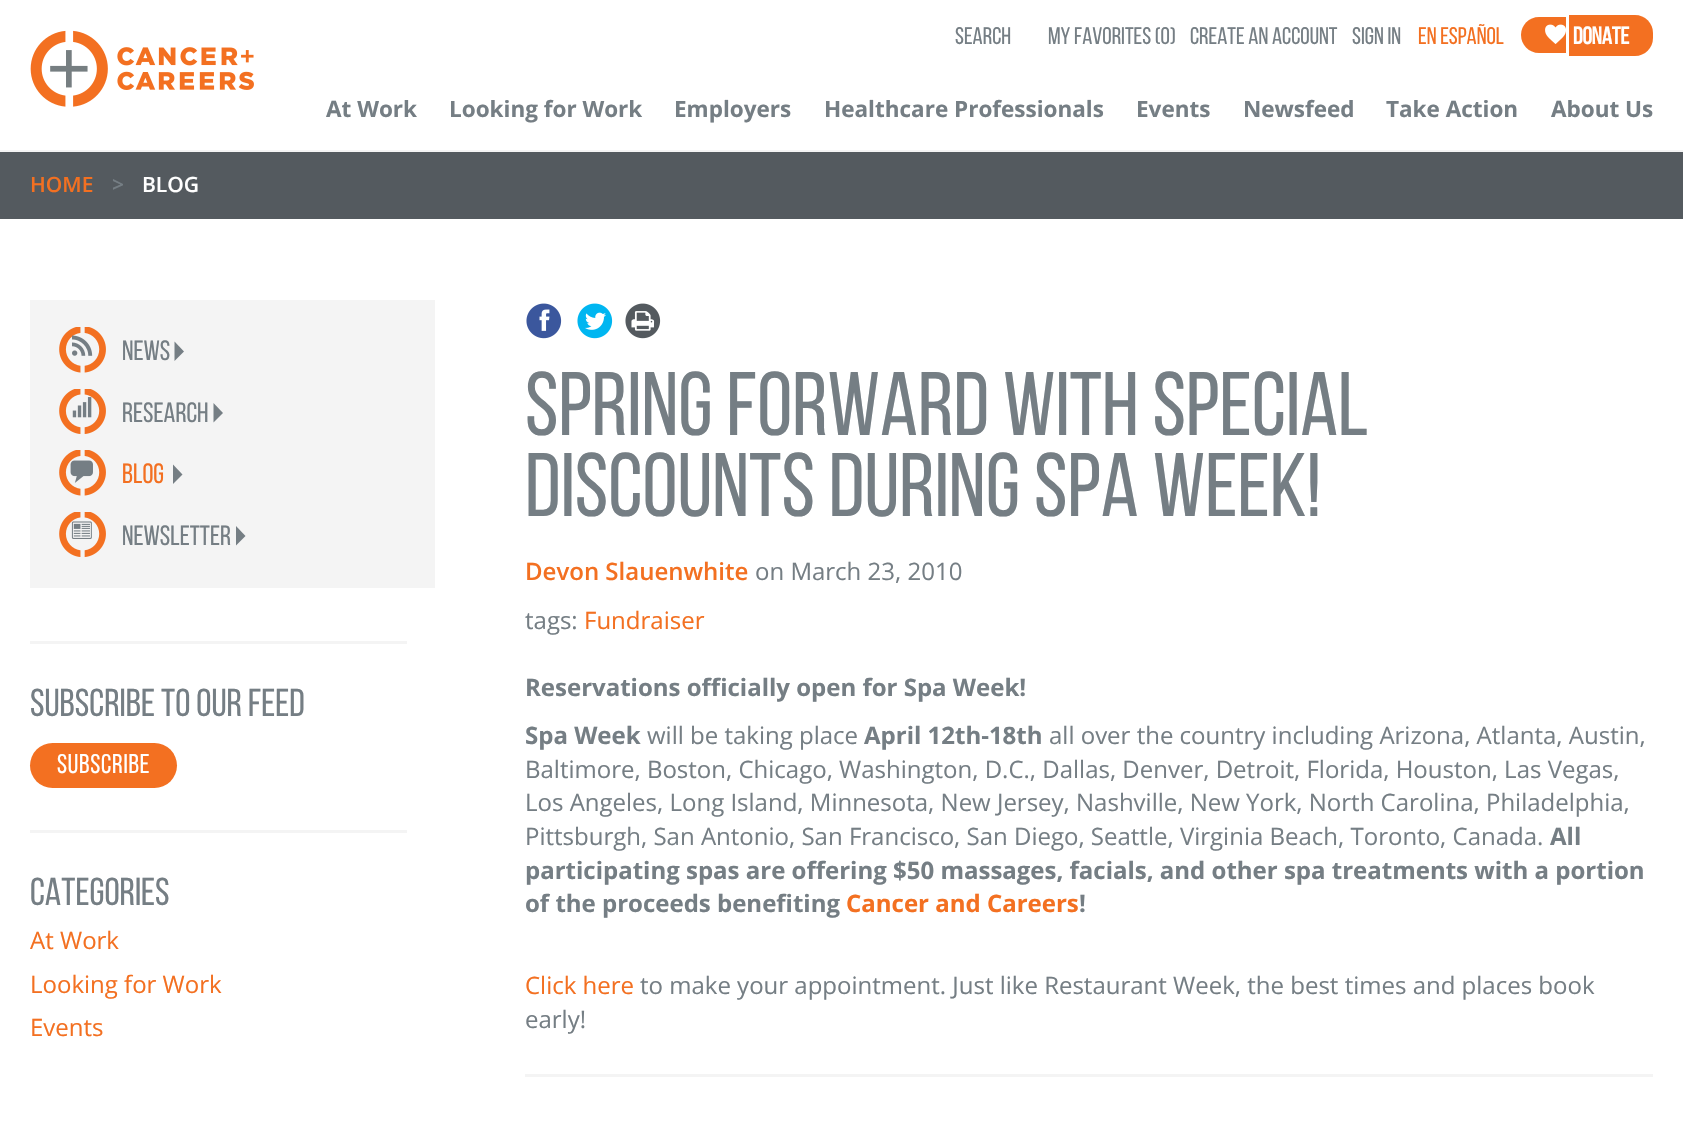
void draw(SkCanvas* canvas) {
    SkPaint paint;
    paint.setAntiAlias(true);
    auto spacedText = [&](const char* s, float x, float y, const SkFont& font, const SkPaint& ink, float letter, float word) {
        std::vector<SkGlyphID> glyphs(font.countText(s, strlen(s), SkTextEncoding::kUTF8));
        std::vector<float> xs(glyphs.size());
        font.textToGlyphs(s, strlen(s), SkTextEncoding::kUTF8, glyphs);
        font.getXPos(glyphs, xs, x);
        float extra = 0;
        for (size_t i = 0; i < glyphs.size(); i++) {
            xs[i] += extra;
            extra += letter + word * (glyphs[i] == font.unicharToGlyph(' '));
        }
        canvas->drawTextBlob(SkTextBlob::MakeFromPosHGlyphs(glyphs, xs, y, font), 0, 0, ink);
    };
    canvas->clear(0xFFFFFFFF);
    paint.setColor(0xFFF4F4F4);
    canvas->drawRect(SkRect::MakeXYWH(0, 150, 1683, 2), paint);
    canvas->drawImageRect(SkImages::DeferredFromEncodedData(SkData::MakeFromFileName("img1.png")), SkRect::MakeXYWH(30, 30, 224, 77), SkSamplingOptions());
    SkFont font1(fontMgr->matchFamilyStyle("Bebas Neue", SkFontStyle::Normal()), 24);
    font1.setSubpixel(true);
    paint.setColor(0xFF757E84);
    canvas->drawString("SEARCH", 955, 44, font1, paint);
    canvas->drawString("My Favorites (0)", 1048, 44, font1, paint);
    canvas->drawString("Create an Account", 1190, 44, font1, paint);
    canvas->drawString("Sign In", 1352, 44, font1, paint);
    paint.setColor(0xFFF37021);
    canvas->drawString("En Español", 1418, 44, font1, paint);
    canvas->drawPath(SkPathBuilder().moveTo(1539, 17).lineTo(1566, 17).lineTo(1566, 53).lineTo(1539, 53).cubicTo(1529, 53, 1521, 45, 1521, 35).cubicTo(1521, 25, 1529, 17, 1539, 17).close().detach(), paint);
    canvas->drawImageRect(SkImages::DeferredFromEncodedData(SkData::MakeFromFileName("img2.png")), SkRect::MakeXYWH(1545, 24, 21, 20), SkSamplingOptions());
    canvas->drawPath(SkPathBuilder().moveTo(1569, 15).lineTo(1635, 15).cubicTo(1645, 15, 1653, 23, 1653, 33).lineTo(1653, 38).cubicTo(1653, 48, 1645, 56, 1635, 56).lineTo(1569, 56).close().detach(), paint);
    SkFont font2(fontMgr->matchFamilyStyle("Bebas Neue", SkFontStyle::Bold()), 24);
    font2.setSubpixel(true);
    paint.setColor(0xFFFFFFFF);
    canvas->drawString("Donate", 1573, 44, font2, paint);
    SkFont font3(fontMgr->matchFamilyStyle("Open Sans", SkFontStyle::Bold()), 22.5f);
    font3.setSubpixel(true);
    paint.setColor(0xFF757E84);
    canvas->drawString("At Work", 326, 117, font3, paint);
    canvas->drawString("Looking for Work", 449, 117, font3, paint);
    canvas->drawString("Employers", 674, 117, font3, paint);
    canvas->drawString("Healthcare Professionals", 824, 117, font3, paint);
    canvas->drawString("Events", 1136, 117, font3, paint);
    canvas->drawString("Newsfeed", 1243, 117, font3, paint);
    canvas->drawString("Take Action", 1386, 117, font3, paint);
    canvas->drawString("About Us", 1551, 117, font3, paint);
    paint.setColor(0xFF545A5F);
    canvas->drawRect(SkRect::MakeXYWH(0, 152, 1683, 67), paint);
    SkFont font4(fontMgr->matchFamilyStyle("Open Sans", SkFontStyle(600, SkFontStyle::kNormal_Width, SkFontStyle::kUpright_Slant)), 21);
    font4.setSubpixel(true);
    paint.setColor(0xFFF37021);
    canvas->drawString("HOME", 30, 192, font4, paint);
    paint.setColor(0xFF757E84);
    canvas->drawString(">", 112, 192, font4, paint);
    paint.setColor(0xFFFFFFFF);
    canvas->drawString("BLOG", 142, 192, font4, paint);
    paint.setColor(0xFFF4F4F4);
    canvas->drawRect(SkRect::MakeXYWH(30, 300, 405, 288), paint);
    canvas->drawImageRect(SkImages::DeferredFromEncodedData(SkData::MakeFromFileName("img3.png")), SkRect::MakeXYWH(59, 327, 47, 46), SkSamplingOptions());
    canvas->drawImageRect(SkImages::DeferredFromEncodedData(SkData::MakeFromFileName("img4.png")), SkRect::MakeXYWH(72, 335, 21, 21), SkSamplingOptions());
    SkFont font5(fontMgr->matchFamilyStyle("Bebas Neue", SkFontStyle::Normal()), 28);
    font5.setSubpixel(true);
    paint.setColor(0xFF757E84);
    canvas->drawString("News", 122, 360, font5, paint);
    canvas->drawPath(SkPathBuilder().moveTo(174.5f, 341.5f).lineTo(174.5f, 361).lineTo(184, 351.5f).close().detach(), paint);
    canvas->drawImageRect(SkImages::DeferredFromEncodedData(SkData::MakeFromFileName("img5.png")), SkRect::MakeXYWH(59, 389, 47, 45), SkSamplingOptions());
    canvas->drawImageRect(SkImages::DeferredFromEncodedData(SkData::MakeFromFileName("img6.png")), SkRect::MakeXYWH(72, 397, 20, 21), SkSamplingOptions());
    canvas->drawString("Research", 122, 422, font5, paint);
    canvas->drawPath(SkPathBuilder().moveTo(213.5f, 403).lineTo(213.5f, 422.5f).lineTo(223, 413).close().detach(), paint);
    canvas->drawImageRect(SkImages::DeferredFromEncodedData(SkData::MakeFromFileName("img3.png")), SkRect::MakeXYWH(59, 450, 47, 46), SkSamplingOptions());
    canvas->drawImageRect(SkImages::DeferredFromEncodedData(SkData::MakeFromFileName("img7.png")), SkRect::MakeXYWH(70, 460, 23, 23), SkSamplingOptions());
    paint.setColor(0xFFF37021);
    canvas->drawString("Blog", 122, 483, font5, paint);
    paint.setColor(0xFF757E84);
    canvas->drawPath(SkPathBuilder().moveTo(173, 464.5f).lineTo(173, 484).lineTo(182.5f, 474.5f).close().detach(), paint);
    canvas->drawImageRect(SkImages::DeferredFromEncodedData(SkData::MakeFromFileName("img5.png")), SkRect::MakeXYWH(59, 512, 47, 45), SkSamplingOptions());
    canvas->drawImageRect(SkImages::DeferredFromEncodedData(SkData::MakeFromFileName("img8.png")), SkRect::MakeXYWH(71, 521, 21, 18), SkSamplingOptions());
    canvas->drawString("newsletter", 122, 545, font5, paint);
    canvas->drawPath(SkPathBuilder().moveTo(236, 526).lineTo(236, 545.5f).lineTo(245.5f, 536).close().detach(), paint);
    paint.setColor(0xFFF4F4F4);
    canvas->drawRect(SkRect::MakeXYWH(30, 641, 377, 3), paint);
    SkFont font6(fontMgr->matchFamilyStyle("Bebas Neue", SkFontStyle::Normal()), 39);
    font6.setSubpixel(true);
    paint.setColor(0xFF757E84);
    canvas->drawString("SUBSCRIBE TO OUR FEED", 30, 716, font6, paint);
    paint.setColor(0xFFF37021);
    canvas->drawRoundRect(SkRect::MakeXYWH(30, 743, 147, 45), 22.5f, 22.5f, paint);
    SkFont font7(fontMgr->matchFamilyStyle("Bebas Neue", SkFontStyle::Normal()), 27);
    font7.setSubpixel(true);
    paint.setColor(0xFFFFFFFF);
    spacedText("SUBSCRIBE", 57, 773, font7, paint, 0.75f, 0);
    paint.setColor(0xFFF4F4F4);
    canvas->drawRect(SkRect::MakeXYWH(30, 830, 377, 3), paint);
    paint.setColor(0xFF757E84);
    canvas->drawString("CATEGORIES", 30, 905, font6, paint);
    SkFont font8(fontMgr->matchFamilyStyle("Open Sans", SkFontStyle::Normal()), 24);
    font8.setSubpixel(true);
    paint.setColor(0xFFF37021);
    canvas->drawString("At Work", 30, 949, font8, paint);
    canvas->drawString("Looking for Work", 30, 993, font8, paint);
    canvas->drawString("Events", 30, 1036, font8, paint);
    canvas->drawImageRect(SkImages::DeferredFromEncodedData(SkData::MakeFromFileName("img9.png")), SkRect::MakeXYWH(526, 303, 36, 36), SkSamplingOptions());
    canvas->drawImageRect(SkImages::DeferredFromEncodedData(SkData::MakeFromFileName("img10.png")), SkRect::MakeXYWH(577, 303, 36, 36), SkSamplingOptions());
    canvas->drawImageRect(SkImages::DeferredFromEncodedData(SkData::MakeFromFileName("img11.png")), SkRect::MakeXYWH(625, 303, 36, 36), SkSamplingOptions());
    SkFont font9(fontMgr->matchFamilyStyle("Bebas Neue", SkFontStyle::Normal()), 90);
    font9.setSubpixel(true);
    paint.setColor(0xFF757E84);
    canvas->drawString("Spring Forward With Special", 525, 435, font9, paint);
    canvas->drawString("Discounts During Spa Week!", 525, 516, font9, paint);
    SkFont font10(fontMgr->matchFamilyStyle("Open Sans", SkFontStyle(600, SkFontStyle::kNormal_Width, SkFontStyle::kUpright_Slant)), 24);
    font10.setSubpixel(true);
    paint.setColor(0xFFF37021);
    canvas->drawString("Devon Slauenwhite", 525, 580, font10, paint);
    paint.setColor(0xFF757E84);
    canvas->drawString("on March 23, 2010", 755, 580, font8, paint);
    canvas->drawString("tags:", 525, 629, font8, paint);
    paint.setColor(0xFFF37021);
    canvas->drawString("Fundraiser", 584, 629, font8, paint);
    SkFont font11(fontMgr->matchFamilyStyle("Open Sans", SkFontStyle::Bold()), 24);
    font11.setSubpixel(true);
    paint.setColor(0xFF757E84);
    canvas->drawString("Reservations officially open for Spa Week!", 525, 696, font11, paint);
    canvas->drawString("Spa Week", 525, 744, font11, paint);
    canvas->drawString("will be taking place", 647, 744, font8, paint);
    canvas->drawString("April 12th-18th", 864, 744, font11, paint);
    canvas->drawString("all over the country including Arizona, Atlanta, Austin,", 1049, 744, font8, paint);
    canvas->drawString("Baltimore, Boston, Chicago, Washington, D.C., Dallas, Denver, Detroit, Florida, Houston, Las Vegas,", 525, 778, font8, paint);
    canvas->drawString("Los Angeles, Long Island, Minnesota, New Jersey, Nashville, New York, North Carolina, Philadelphia,", 525, 811, font8, paint);
    canvas->drawString("Pittsburgh, San Antonio, San Francisco, San Diego, Seattle, Virginia Beach, Toronto, Canada.", 525, 845, font8, paint);
    canvas->drawString("All", 1550, 845, font11, paint);
    canvas->drawString("participating spas are offering $50 massages, facials, and other spa treatments with a portion", 525, 879, font11, paint);
    canvas->drawString("of the proceeds benefiting", 525, 912, font11, paint);
    paint.setColor(0xFFF37021);
    canvas->drawString("Cancer and Careers", 846, 912, font11, paint);
    paint.setColor(0xFF757E84);
    canvas->drawString("!", 1079, 912, font11, paint);
    paint.setColor(0xFFF37021);
    canvas->drawString("Click here", 525, 994, font8, paint);
    paint.setColor(0xFF757E84);
    canvas->drawString("to make your appointment. Just like Restaurant Week, the best times and places book", 640, 994, font8, paint);
    canvas->drawString("early!", 525, 1028, font8, paint);
    paint.setColor(0xFFF4F4F4);
    canvas->drawRect(SkRect::MakeXYWH(525, 1074, 1128, 3), paint);
}
